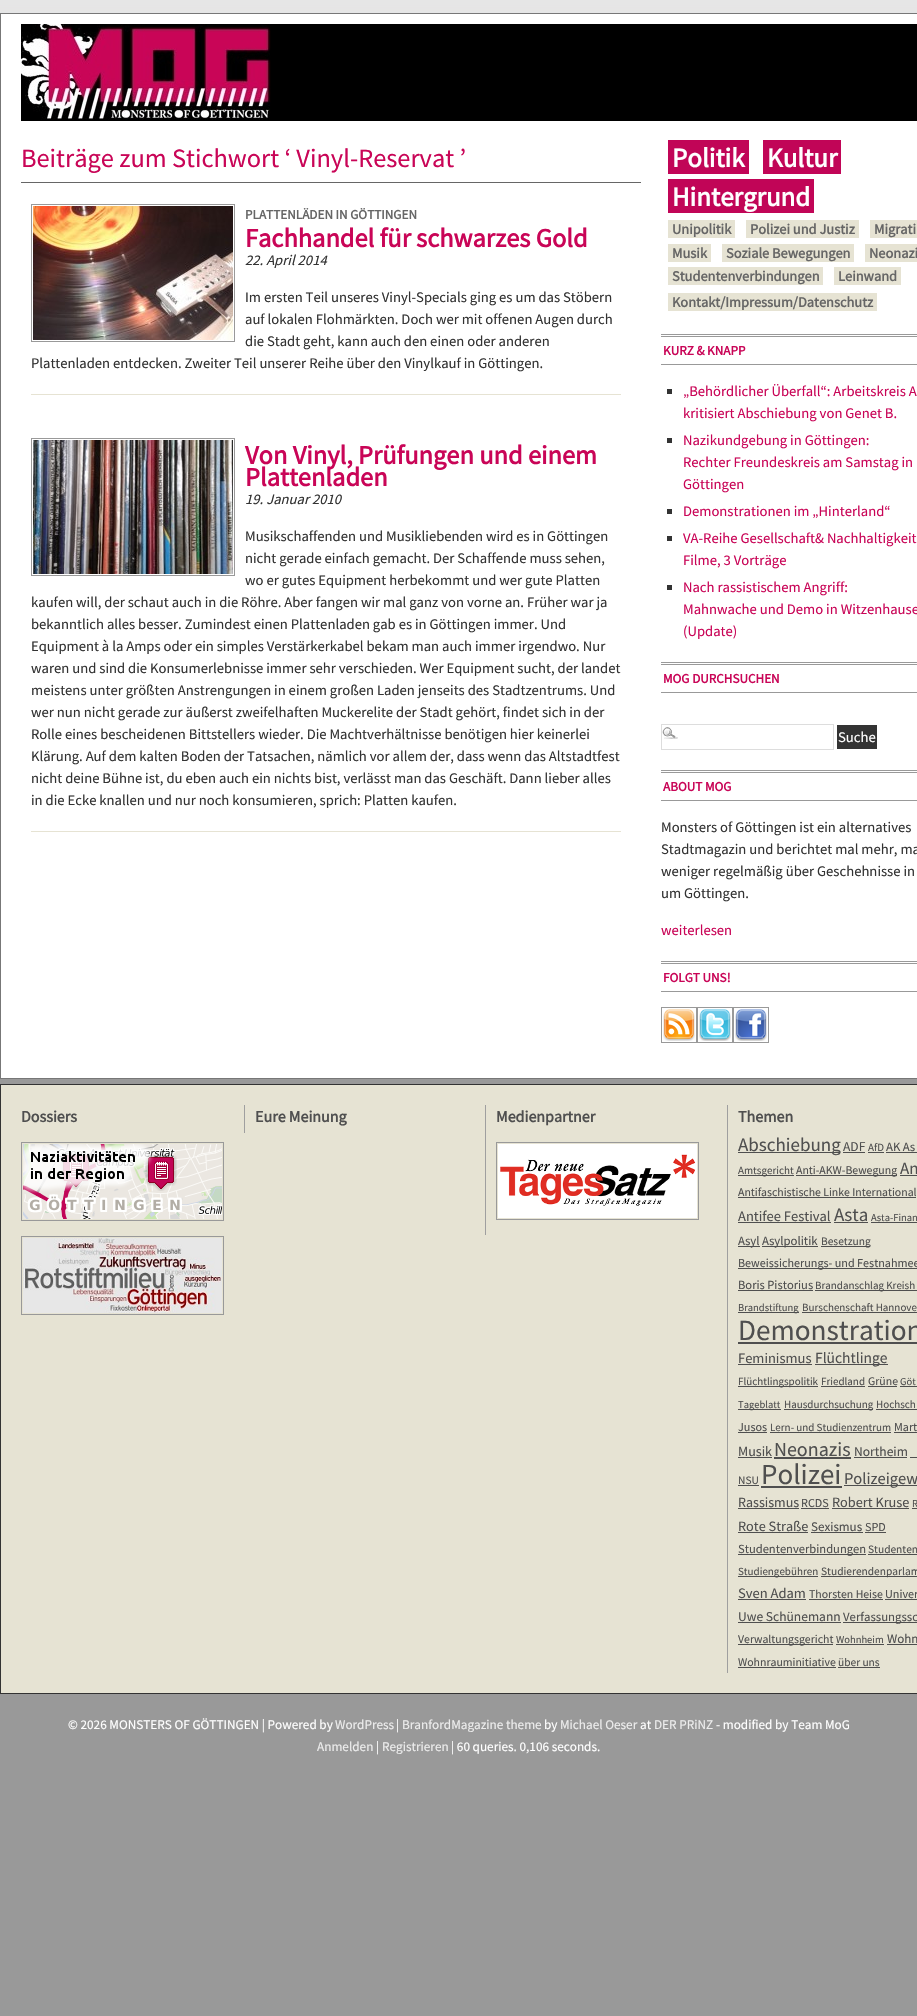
void draw(SkCanvas* canvas) {
    SkPaint paint;
    paint.setAntiAlias(true);
    canvas->clear(0xFF999999);
    canvas->drawImageRect(SkImages::DeferredFromEncodedData(SkData::MakeFromFileName("img1.png")), SkRect::MakeXYWH(0, 0, 917, 13), SkSamplingOptions());
    paint.setColor(0xFFFFFFFF);
    canvas->drawRect(SkRect::MakeXYWH(0.5f, 13.5f, 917, 1065), paint);
    paint.setStyle(SkPaint::kStroke_Style);
    paint.setStrokeWidth(1);
    paint.setColor(0xFF777777);
    canvas->drawRect(SkRect::MakeXYWH(0.5f, 13.5f, 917, 1065), paint);
    paint.setStyle(SkPaint::kFill_Style);
    paint.setColor(0xFF000000);
    canvas->drawRect(SkRect::MakeXYWH(21, 24, 896, 97), paint);
    canvas->drawImageRect(SkImages::DeferredFromEncodedData(SkData::MakeFromFileName("img2.png")), SkRect::MakeXYWH(21, 24, 250, 96), SkSamplingOptions());
    paint.setColor(0xFF666666);
    canvas->drawRect(SkRect::MakeXYWH(21, 182, 620, 1), paint);
    SkFont font1(fontMgr->matchFamilyStyle("Source Sans Pro", SkFontStyle::Normal()), 26.4f);
    font1.setSubpixel(true);
    paint.setColor(0xFFC90557);
    canvas->drawString("Beiträge zum Stichwort ‘ Vinyl-Reservat ’", 21, 167, font1, paint);
    paint.setStyle(SkPaint::kStroke_Style);
    paint.setColor(0xFF999999);
    canvas->drawRect(SkRect::MakeXYWH(31.5f, 204.5f, 203, 137), paint);
    canvas->drawImageRect(SkImages::DeferredFromEncodedData(SkData::MakeFromFileName("img3.png")), SkRect::MakeXYWH(33, 206, 200, 134), SkSamplingOptions());
    paint.setStyle(SkPaint::kFill_Style);
    paint.setColor(0xFFE6E3D3);
    canvas->drawRect(SkRect::MakeXYWH(31, 394, 590, 1), paint);
    SkFont font2(fontMgr->matchFamilyStyle("Source Sans Pro", SkFontStyle::Bold()), 13.2f);
    font2.setSubpixel(true);
    paint.setColor(0xFF666666);
    canvas->drawString("PLATTENLÄDEN IN GÖTTINGEN", 245, 219, font2, paint);
    SkFont font3(fontMgr->matchFamilyStyle("Source Sans Pro", SkFontStyle::Bold()), 26.4f);
    font3.setSubpixel(true);
    paint.setColor(0xFFC90557);
    canvas->drawString("Fachhandel für schwarzes Gold", 245, 247, font3, paint);
    SkFont font4(fontMgr->matchFamilyStyle("Source Sans Pro", SkFontStyle::Italic()), 14.65f);
    font4.setSubpixel(true);
    paint.setColor(0xFF333333);
    canvas->drawString("22. April 2014", 245, 265, font4, paint);
    SkFont font5(fontMgr->matchFamilyStyle("Source Sans Pro", SkFontStyle::Normal()), 14.65f);
    font5.setSubpixel(true);
    canvas->drawString("Im ersten Teil unseres Vinyl-Specials ging es um das Stöbern", 245, 302, font5, paint);
    canvas->drawString("auf lokalen Flohmärkten. Doch wer mit offenen Augen durch", 245, 324, font5, paint);
    canvas->drawString("die Stadt geht, kann auch den einen oder anderen", 245, 346, font5, paint);
    canvas->drawString("Plattenladen entdecken. Zweiter Teil unserer Reihe über den Vinylkauf in Göttingen.", 31, 368, font5, paint);
    paint.setStyle(SkPaint::kStroke_Style);
    paint.setColor(0xFF999999);
    canvas->drawRect(SkRect::MakeXYWH(31.5f, 438.5f, 203, 137), paint);
    canvas->drawImageRect(SkImages::DeferredFromEncodedData(SkData::MakeFromFileName("img4.png")), SkRect::MakeXYWH(33, 440, 200, 134), SkSamplingOptions());
    paint.setStyle(SkPaint::kFill_Style);
    paint.setColor(0xFFE6E3D3);
    canvas->drawRect(SkRect::MakeXYWH(31, 831, 590, 1), paint);
    paint.setColor(0xFFC90557);
    canvas->drawString("Von Vinyl, Prüfungen und einem", 245, 464, font3, paint);
    canvas->drawString("Plattenladen", 245, 486, font3, paint);
    paint.setColor(0xFF333333);
    canvas->drawString("19. Januar 2010", 245, 504, font4, paint);
    canvas->drawString("Musikschaffenden und Musikliebenden wird es in Göttingen", 245, 541, font5, paint);
    canvas->drawString("nicht gerade einfach gemacht. Der Schaffende muss sehen,", 245, 563, font5, paint);
    canvas->drawString("wo er gutes Equipment herbekommt und wer gute Platten", 245, 585, font5, paint);
    canvas->drawString("kaufen will, der schaut auch in die Röhre. Aber fangen wir mal ganz von vorne an. Früher war ja", 31, 607, font5, paint);
    canvas->drawString("bekanntlich alles besser. Zumindest einen Plattenladen gab es in Göttingen immer. Und", 31, 629, font5, paint);
    canvas->drawString("Equipment à la Amps oder ein simples Verstärkerkabel bekam man auch immer irgendwo. Nur", 31, 651, font5, paint);
    canvas->drawString("waren und sind die Konsumerlebnisse immer sehr verschieden. Wer Equipment sucht, der landet", 31, 673, font5, paint);
    canvas->drawString("meistens unter größten Anstrengungen in einem großen Laden jenseits des Stadtzentrums. Und", 31, 695, font5, paint);
    canvas->drawString("wer nun nicht gerade zur äußerst zweifelhaften Muckerelite der Stadt gehört, findet sich in der", 31, 717, font5, paint);
    canvas->drawString("Rolle eines bescheidenen Bittstellers wieder. Die Machtverhältnisse benötigen hier keinerlei", 31, 739, font5, paint);
    canvas->drawString("Klärung. Auf dem kalten Boden der Tatsachen, nämlich vor allem der, dass wenn das Altstadtfest", 31, 761, font5, paint);
    canvas->drawString("nicht deine Bühne ist, du eben auch ein nichts bist, verlässt man das Geschäft. Dann lieber alles", 31, 783, font5, paint);
    canvas->drawString("in die Ecke knallen und nur noch konsumieren, sprich: Platten kaufen.", 31, 805, font5, paint);
    paint.setColor(0xFFC10557);
    canvas->drawRect(SkRect::MakeXYWH(668, 140, 81, 34), paint);
    SkFont font6(fontMgr->matchFamilyStyle("Source Sans Pro", SkFontStyle::Bold()), 27);
    font6.setSubpixel(true);
    paint.setColor(0xFFFFFFFF);
    canvas->drawString("Politik", 672, 167, font6, paint);
    paint.setColor(0xFFC10557);
    canvas->drawRect(SkRect::MakeXYWH(763, 140, 78, 34), paint);
    paint.setColor(0xFFFFFFFF);
    canvas->drawString("Kultur", 767, 167, font6, paint);
    paint.setColor(0xFFC10557);
    canvas->drawRect(SkRect::MakeXYWH(668, 179, 146, 34), paint);
    paint.setColor(0xFFFFFFFF);
    canvas->drawString("Hintergrund", 672, 206, font6, paint);
    paint.setColor(0xFFE6E3D3);
    canvas->drawRect(SkRect::MakeXYWH(668, 220, 67, 18), paint);
    SkFont font7(fontMgr->matchFamilyStyle("Source Sans Pro", SkFontStyle::Bold()), 14.4f);
    font7.setSubpixel(true);
    paint.setColor(0xFF666666);
    canvas->drawString("Unipolitik", 672, 234, font7, paint);
    paint.setColor(0xFFE6E3D3);
    canvas->drawRect(SkRect::MakeXYWH(746, 220, 113, 18), paint);
    paint.setColor(0xFF666666);
    canvas->drawString("Polizei und Justiz", 750, 234, font7, paint);
    paint.setColor(0xFFE6E3D3);
    canvas->drawRect(SkRect::MakeXYWH(870, 220, 47, 18), paint);
    paint.setColor(0xFF666666);
    canvas->drawString("Migrati", 874, 234, font7, paint);
    paint.setColor(0xFFE6E3D3);
    canvas->drawRect(SkRect::MakeXYWH(668, 244, 43, 18), paint);
    paint.setColor(0xFF666666);
    canvas->drawString("Musik", 672, 258, font7, paint);
    paint.setColor(0xFFE6E3D3);
    canvas->drawRect(SkRect::MakeXYWH(722, 244, 132, 18), paint);
    paint.setColor(0xFF666666);
    canvas->drawString("Soziale Bewegungen", 726, 258, font7, paint);
    paint.setColor(0xFFE6E3D3);
    canvas->drawRect(SkRect::MakeXYWH(865, 244, 52, 18), paint);
    paint.setColor(0xFF666666);
    canvas->drawString("Neonazi", 869, 258, font7, paint);
    paint.setColor(0xFFE6E3D3);
    canvas->drawRect(SkRect::MakeXYWH(668, 267, 155, 18), paint);
    paint.setColor(0xFF666666);
    canvas->drawString("Studentenverbindungen", 672, 281, font7, paint);
    paint.setColor(0xFFE6E3D3);
    canvas->drawRect(SkRect::MakeXYWH(834, 267, 67, 18), paint);
    paint.setColor(0xFF666666);
    canvas->drawString("Leinwand", 838, 281, font7, paint);
    paint.setColor(0xFFE6E3D3);
    canvas->drawRect(SkRect::MakeXYWH(668, 293, 209, 18), paint);
    paint.setColor(0xFF666666);
    canvas->drawString("Kontakt/Impressum/Datenschutz", 672, 307, font7, paint);
    paint.setColor(0xFF999999);
    canvas->drawRect(SkRect::MakeXYWH(661, 334, 256, 1), paint);
    canvas->drawRect(SkRect::MakeXYWH(661, 336, 256, 1), paint);
    canvas->drawRect(SkRect::MakeXYWH(661, 364, 256, 1), paint);
    paint.setColor(0xFFC90557);
    canvas->drawString("KURZ & KNAPP", 663, 355, font2, paint);
    paint.setColor(0xFF333333);
    canvas->drawRect(SkRect::MakeXYWH(667, 389, 5, 5), paint);
    paint.setColor(0xFFC90557);
    canvas->drawString("„Behördlicher Überfall“: Arbeitskreis A", 683, 396, font5, paint);
    canvas->drawString("kritisiert Abschiebung von Genet B.", 683, 418, font5, paint);
    paint.setColor(0xFF333333);
    canvas->drawRect(SkRect::MakeXYWH(667, 438, 5, 5), paint);
    paint.setColor(0xFFC90557);
    canvas->drawString("Nazikundgebung in Göttingen:", 683, 445, font5, paint);
    canvas->drawString("Rechter Freundeskreis am Samstag in", 683, 467, font5, paint);
    canvas->drawString("Göttingen", 683, 489, font5, paint);
    paint.setColor(0xFF333333);
    canvas->drawRect(SkRect::MakeXYWH(667, 509, 5, 5), paint);
    paint.setColor(0xFFC90557);
    canvas->drawString("Demonstrationen im „Hinterland“", 683, 516, font5, paint);
    paint.setColor(0xFF333333);
    canvas->drawRect(SkRect::MakeXYWH(667, 536, 5, 5), paint);
    paint.setColor(0xFFC90557);
    canvas->drawString("VA-Reihe Gesellschaft& Nachhaltigkeit", 683, 543, font5, paint);
    canvas->drawString("Filme, 3 Vorträge", 683, 565, font5, paint);
    paint.setColor(0xFF333333);
    canvas->drawRect(SkRect::MakeXYWH(667, 585, 5, 5), paint);
    paint.setColor(0xFFC90557);
    canvas->drawString("Nach rassistischem Angriff:", 683, 592, font5, paint);
    canvas->drawString("Mahnwache und Demo in Witzenhause", 683, 614, font5, paint);
    canvas->drawString("(Update)", 683, 636, font5, paint);
    paint.setColor(0xFF999999);
    canvas->drawRect(SkRect::MakeXYWH(661, 662, 256, 1), paint);
    canvas->drawRect(SkRect::MakeXYWH(661, 664, 256, 1), paint);
    canvas->drawRect(SkRect::MakeXYWH(661, 692, 256, 1), paint);
    paint.setColor(0xFFC90557);
    canvas->drawString("MOG DURCHSUCHEN", 663, 683, font2, paint);
    canvas->drawImageRect(SkImages::DeferredFromEncodedData(SkData::MakeFromFileName("img5.png")), SkRect::MakeXYWH(662, 727, 16, 12), SkSamplingOptions());
    paint.setStyle(SkPaint::kStroke_Style);
    paint.setColor(0xFFDDDDDD);
    canvas->drawRect(SkRect::MakeXYWH(661.5f, 724.5f, 172, 25), paint);
    paint.setStyle(SkPaint::kFill_Style);
    paint.setColor(0xFF333333);
    canvas->drawRect(SkRect::MakeXYWH(837, 725, 40, 24), paint);
    paint.setColor(0xFFFFFFFF);
    canvas->drawString("Suche", 838, 742, font5, paint);
    paint.setColor(0xFF999999);
    canvas->drawRect(SkRect::MakeXYWH(661, 770, 256, 1), paint);
    canvas->drawRect(SkRect::MakeXYWH(661, 772, 256, 1), paint);
    canvas->drawRect(SkRect::MakeXYWH(661, 800, 256, 1), paint);
    paint.setColor(0xFFC90557);
    canvas->drawString("ABOUT MOG", 663, 791, font2, paint);
    paint.setColor(0xFF333333);
    canvas->drawString("Monsters of Göttingen ist ein alternatives", 661, 832, font5, paint);
    canvas->drawString("Stadtmagazin und berichtet mal mehr, ma", 661, 854, font5, paint);
    canvas->drawString("weniger regelmäßig über Geschehnisse in", 661, 876, font5, paint);
    canvas->drawString("um Göttingen.", 661, 898, font5, paint);
    paint.setColor(0xFFC90557);
    canvas->drawString("weiterlesen", 661, 935, font5, paint);
    paint.setColor(0xFF999999);
    canvas->drawRect(SkRect::MakeXYWH(661, 961, 256, 1), paint);
    canvas->drawRect(SkRect::MakeXYWH(661, 963, 256, 1), paint);
    canvas->drawRect(SkRect::MakeXYWH(661, 991, 256, 1), paint);
    paint.setColor(0xFFC90557);
    canvas->drawString("FOLGT UNS!", 663, 982, font2, paint);
    paint.setStyle(SkPaint::kStroke_Style);
    paint.setColor(0xFF999999);
    canvas->drawRect(SkRect::MakeXYWH(661.5f, 1007.5f, 35, 35), paint);
    canvas->drawRect(SkRect::MakeXYWH(697.5f, 1007.5f, 35, 35), paint);
    canvas->drawRect(SkRect::MakeXYWH(733.5f, 1007.5f, 35, 35), paint);
    canvas->drawImageRect(SkImages::DeferredFromEncodedData(SkData::MakeFromFileName("img6.png")), SkRect::MakeXYWH(663, 1009, 32, 32), SkSamplingOptions());
    canvas->drawImageRect(SkImages::DeferredFromEncodedData(SkData::MakeFromFileName("img7.png")), SkRect::MakeXYWH(699, 1009, 32, 32), SkSamplingOptions());
    canvas->drawImageRect(SkImages::DeferredFromEncodedData(SkData::MakeFromFileName("img8.png")), SkRect::MakeXYWH(735, 1009, 32, 32), SkSamplingOptions());
    paint.setStyle(SkPaint::kFill_Style);
    paint.setColor(0xFFE6E3D3);
    canvas->drawRect(SkRect::MakeXYWH(0.5f, 1084.5f, 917, 609), paint);
    paint.setStyle(SkPaint::kStroke_Style);
    paint.setColor(0xFF333333);
    canvas->drawRect(SkRect::MakeXYWH(0.5f, 1084.5f, 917, 609), paint);
    SkFont font8(fontMgr->matchFamilyStyle("Source Sans Pro", SkFontStyle::Bold()), 16);
    font8.setSubpixel(true);
    paint.setStyle(SkPaint::kFill_Style);
    paint.setColor(0xFF4F4F4F);
    canvas->drawString("Dossiers", 21, 1122, font8, paint);
    paint.setStyle(SkPaint::kStroke_Style);
    paint.setColor(0xFF999999);
    canvas->drawRect(SkRect::MakeXYWH(21.5f, 1142.5f, 202, 78), paint);
    canvas->drawImageRect(SkImages::DeferredFromEncodedData(SkData::MakeFromFileName("img9.png")), SkRect::MakeXYWH(23, 1144, 199, 75), SkSamplingOptions());
    canvas->drawRect(SkRect::MakeXYWH(21.5f, 1236.5f, 202, 78), paint);
    canvas->drawImageRect(SkImages::DeferredFromEncodedData(SkData::MakeFromFileName("img10.png")), SkRect::MakeXYWH(23, 1238, 199, 75), SkSamplingOptions());
    paint.setStyle(SkPaint::kFill_Style);
    paint.setColor(0xFF9F9F9F);
    canvas->drawRect(SkRect::MakeXYWH(244, 1105, 1, 28), paint);
    paint.setColor(0xFF4F4F4F);
    canvas->drawString("Eure Meinung", 255, 1122, font8, paint);
    paint.setColor(0xFF9F9F9F);
    canvas->drawRect(SkRect::MakeXYWH(485, 1105, 1, 130), paint);
    paint.setColor(0xFF4F4F4F);
    canvas->drawString("Medienpartner", 496, 1122, font8, paint);
    paint.setStyle(SkPaint::kStroke_Style);
    paint.setColor(0xFF999999);
    canvas->drawRect(SkRect::MakeXYWH(496.5f, 1142.5f, 202, 77), paint);
    canvas->drawImageRect(SkImages::DeferredFromEncodedData(SkData::MakeFromFileName("img11.png")), SkRect::MakeXYWH(498, 1144, 199, 74), SkSamplingOptions());
    paint.setStyle(SkPaint::kFill_Style);
    paint.setColor(0xFF9F9F9F);
    canvas->drawRect(SkRect::MakeXYWH(727, 1105, 1, 568), paint);
    paint.setColor(0xFF4F4F4F);
    canvas->drawString("Themen", 738, 1122, font8, paint);
    canvas->drawRect(SkRect::MakeXYWH(738, 1152, 102, 1), paint);
    SkFont font9(fontMgr->matchFamilyStyle("Source Sans Pro", SkFontStyle::Normal()), 19);
    font9.setSubpixel(true);
    canvas->drawString("Abschiebung", 738, 1151, font9, paint);
    SkFont font10(fontMgr->matchFamilyStyle("Source Sans Pro", SkFontStyle::Normal()), 13.5f);
    font10.setSubpixel(true);
    canvas->drawString("ADF", 843, 1151, font10, paint);
    canvas->drawRect(SkRect::MakeXYWH(843, 1152, 22, 1), paint);
    SkFont font11(fontMgr->matchFamilyStyle("Source Sans Pro", SkFontStyle::Normal()), 11);
    font11.setSubpixel(true);
    canvas->drawString("AfD", 868, 1151, font11, paint);
    canvas->drawRect(SkRect::MakeXYWH(868, 1152, 16, 1), paint);
    SkFont font12(fontMgr->matchFamilyStyle("Source Sans Pro", SkFontStyle::Normal()), 12.75f);
    font12.setSubpixel(true);
    canvas->drawString("AK As", 886, 1151, font12, paint);
    canvas->drawRect(SkRect::MakeXYWH(886, 1152, 31, 1), paint);
    canvas->drawRect(SkRect::MakeXYWH(738, 1175, 56, 1), paint);
    canvas->drawString("Amtsgericht", 738, 1174, font11, paint);
    canvas->drawRect(SkRect::MakeXYWH(796, 1175, 101, 1), paint);
    SkFont font13(fontMgr->matchFamilyStyle("Source Sans Pro", SkFontStyle::Normal()), 11.75f);
    font13.setSubpixel(true);
    canvas->drawString("Anti-AKW-Bewegung", 796, 1174, font13, paint);
    SkFont font14(fontMgr->matchFamilyStyle("Source Sans Pro", SkFontStyle::Normal()), 17);
    font14.setSubpixel(true);
    canvas->drawString("An", 900, 1174, font14, paint);
    canvas->drawRect(SkRect::MakeXYWH(900, 1175, 17, 1), paint);
    canvas->drawString("Antifaschistische Linke International", 738, 1196, font13, paint);
    canvas->drawRect(SkRect::MakeXYWH(738, 1197, 178, 1), paint);
    SkFont font15(fontMgr->matchFamilyStyle("Source Sans Pro", SkFontStyle::Normal()), 14.5f);
    font15.setSubpixel(true);
    canvas->drawString("Antifee Festival", 738, 1221, font15, paint);
    canvas->drawRect(SkRect::MakeXYWH(738, 1222, 93, 1), paint);
    canvas->drawString("Asta", 834, 1221, font9, paint);
    canvas->drawRect(SkRect::MakeXYWH(834, 1222, 34, 1), paint);
    SkFont font16(fontMgr->matchFamilyStyle("Source Sans Pro", SkFontStyle::Normal()), 10.5f);
    font16.setSubpixel(true);
    canvas->drawString("Asta-Finan", 871, 1221, font16, paint);
    canvas->drawRect(SkRect::MakeXYWH(871, 1222, 46, 1), paint);
    canvas->drawRect(SkRect::MakeXYWH(738, 1246, 22, 1), paint);
    canvas->drawString("Asyl", 738, 1245, font12, paint);
    canvas->drawRect(SkRect::MakeXYWH(762, 1246, 56, 1), paint);
    canvas->drawString("Asylpolitik", 762, 1245, font12, paint);
    canvas->drawRect(SkRect::MakeXYWH(821, 1246, 49, 1), paint);
    SkFont font17(fontMgr->matchFamilyStyle("Source Sans Pro", SkFontStyle::Normal()), 11.4f);
    font17.setSubpixel(true);
    canvas->drawString("Besetzung", 821, 1245, font17, paint);
    canvas->drawRect(SkRect::MakeXYWH(738, 1268, 179, 1), paint);
    SkFont font18(fontMgr->matchFamilyStyle("Source Sans Pro", SkFontStyle::Normal()), 12.1f);
    font18.setSubpixel(true);
    canvas->drawString("Beweissicherungs- und Festnahmee", 738, 1267, font18, paint);
    SkFont font19(fontMgr->matchFamilyStyle("Source Sans Pro", SkFontStyle::Normal()), 12.5f);
    font19.setSubpixel(true);
    canvas->drawString("Boris Pistorius", 738, 1289, font19, paint);
    canvas->drawRect(SkRect::MakeXYWH(738, 1290, 75, 1), paint);
    canvas->drawRect(SkRect::MakeXYWH(815, 1290, 102, 1), paint);
    canvas->drawString("Brandanschlag Kreish", 815, 1289, font11, paint);
    canvas->drawRect(SkRect::MakeXYWH(738, 1312, 61, 1), paint);
    canvas->drawString("Brandstiftung", 738, 1311, font16, paint);
    canvas->drawString("Burschenschaft Hannove", 802, 1311, font11, paint);
    canvas->drawRect(SkRect::MakeXYWH(802, 1312, 115, 1), paint);
    SkFont font20(fontMgr->matchFamilyStyle("Source Sans Pro", SkFontStyle::Normal()), 29.25f);
    font20.setSubpixel(true);
    canvas->drawString("Demonstration", 738, 1340, font20, paint);
    canvas->drawRect(SkRect::MakeXYWH(738, 1342, 179, 2), paint);
    canvas->drawString("Feminismus", 738, 1363, font15, paint);
    canvas->drawRect(SkRect::MakeXYWH(738, 1364, 74, 1), paint);
    canvas->drawRect(SkRect::MakeXYWH(815, 1364, 73, 1), paint);
    SkFont font21(fontMgr->matchFamilyStyle("Source Sans Pro", SkFontStyle::Normal()), 15.5f);
    font21.setSubpixel(true);
    canvas->drawString("Flüchtlinge", 815, 1363, font21, paint);
    canvas->drawRect(SkRect::MakeXYWH(738, 1386, 80, 1), paint);
    canvas->drawString("Flüchtlingspolitik", 738, 1385, font11, paint);
    canvas->drawString("Friedland", 821, 1385, font11, paint);
    canvas->drawRect(SkRect::MakeXYWH(821, 1386, 44, 1), paint);
    canvas->drawString("Grüne", 868, 1385, font13, paint);
    canvas->drawRect(SkRect::MakeXYWH(868, 1386, 29, 1), paint);
    canvas->drawString("Göt", 900, 1385, font16, paint);
    canvas->drawRect(SkRect::MakeXYWH(900, 1386, 17, 1), paint);
    canvas->drawRect(SkRect::MakeXYWH(738, 1409, 43, 1), paint);
    canvas->drawString("Tageblatt", 738, 1408, font16, paint);
    canvas->drawRect(SkRect::MakeXYWH(784, 1409, 89, 1), paint);
    canvas->drawString("Hausdurchsuchung", 784, 1408, font11, paint);
    canvas->drawString("Hochsch", 876, 1408, font11, paint);
    canvas->drawRect(SkRect::MakeXYWH(876, 1409, 41, 1), paint);
    canvas->drawString("Jusos", 738, 1431, font18, paint);
    canvas->drawRect(SkRect::MakeXYWH(738, 1432, 29, 1), paint);
    canvas->drawString("Lern- und Studienzentrum", 770, 1431, font11, paint);
    canvas->drawRect(SkRect::MakeXYWH(770, 1432, 121, 1), paint);
    canvas->drawString("Mart", 894, 1431, font18, paint);
    canvas->drawRect(SkRect::MakeXYWH(894, 1432, 23, 1), paint);
    SkFont font22(fontMgr->matchFamilyStyle("Source Sans Pro", SkFontStyle::Normal()), 14);
    font22.setSubpixel(true);
    canvas->drawString("Musik", 738, 1456, font22, paint);
    canvas->drawRect(SkRect::MakeXYWH(738, 1457, 34, 1), paint);
    SkFont font23(fontMgr->matchFamilyStyle("Source Sans Pro", SkFontStyle::Normal()), 20);
    font23.setSubpixel(true);
    canvas->drawString("Neonazis", 774, 1456, font23, paint);
    canvas->drawRect(SkRect::MakeXYWH(774, 1457, 77, 2), paint);
    canvas->drawString("Northeim", 854, 1456, font10, paint);
    canvas->drawRect(SkRect::MakeXYWH(854, 1457, 53, 1), paint);
    canvas->drawRect(SkRect::MakeXYWH(910, 1457, 7, 1), paint);
    canvas->drawString("NSU", 738, 1484, font17, paint);
    canvas->drawRect(SkRect::MakeXYWH(738, 1485, 21, 1), paint);
    SkFont font24(fontMgr->matchFamilyStyle("Source Sans Pro", SkFontStyle::Normal()), 29);
    font24.setSubpixel(true);
    canvas->drawString("Polizei", 761, 1484, font24, paint);
    canvas->drawRect(SkRect::MakeXYWH(761, 1486, 81, 2), paint);
    canvas->drawRect(SkRect::MakeXYWH(844, 1485, 73, 1), paint);
    SkFont font25(fontMgr->matchFamilyStyle("Source Sans Pro", SkFontStyle::Normal()), 16.5f);
    font25.setSubpixel(true);
    canvas->drawString("Polizeigew", 844, 1484, font25, paint);
    canvas->drawString("Rassismus", 738, 1507, font22, paint);
    canvas->drawRect(SkRect::MakeXYWH(738, 1508, 61, 1), paint);
    canvas->drawString("RCDS", 801, 1507, font18, paint);
    canvas->drawRect(SkRect::MakeXYWH(801, 1508, 28, 1), paint);
    SkFont font26(fontMgr->matchFamilyStyle("Source Sans Pro", SkFontStyle::Normal()), 14.25f);
    font26.setSubpixel(true);
    canvas->drawString("Robert Kruse", 832, 1507, font26, paint);
    canvas->drawRect(SkRect::MakeXYWH(832, 1508, 77, 1), paint);
    canvas->drawString("R", 912, 1507, font16, paint);
    canvas->drawRect(SkRect::MakeXYWH(912, 1508, 5, 1), paint);
    canvas->drawString("Rote Straße", 738, 1531, font26, paint);
    canvas->drawRect(SkRect::MakeXYWH(738, 1532, 70, 1), paint);
    SkFont font27(fontMgr->matchFamilyStyle("Source Sans Pro", SkFontStyle::Normal()), 13);
    font27.setSubpixel(true);
    canvas->drawString("Sexismus", 811, 1531, font27, paint);
    canvas->drawRect(SkRect::MakeXYWH(811, 1532, 52, 1), paint);
    canvas->drawString("SPD", 865, 1531, font18, paint);
    canvas->drawRect(SkRect::MakeXYWH(865, 1532, 21, 1), paint);
    canvas->drawRect(SkRect::MakeXYWH(738, 1554, 128, 1), paint);
    canvas->drawString("Studentenverbindungen", 738, 1553, font19, paint);
    canvas->drawString("Studenten", 868, 1553, font17, paint);
    canvas->drawRect(SkRect::MakeXYWH(868, 1554, 49, 1), paint);
    canvas->drawRect(SkRect::MakeXYWH(738, 1576, 80, 1), paint);
    canvas->drawString("Studiengebühren", 738, 1575, font11, paint);
    canvas->drawRect(SkRect::MakeXYWH(821, 1576, 96, 1), paint);
    canvas->drawString("Studierendenparlam", 821, 1575, font17, paint);
    canvas->drawString("Sven Adam", 738, 1598, font15, paint);
    canvas->drawRect(SkRect::MakeXYWH(738, 1599, 68, 1), paint);
    canvas->drawString("Thorsten Heise", 809, 1598, font13, paint);
    canvas->drawRect(SkRect::MakeXYWH(809, 1599, 74, 1), paint);
    canvas->drawString("Univer", 885, 1598, font18, paint);
    canvas->drawRect(SkRect::MakeXYWH(885, 1599, 32, 1), paint);
    canvas->drawString("Uwe Schünemann", 738, 1621, font10, paint);
    canvas->drawRect(SkRect::MakeXYWH(738, 1622, 103, 1), paint);
    canvas->drawRect(SkRect::MakeXYWH(843, 1622, 74, 1), paint);
    canvas->drawString("Verfassungssc", 843, 1621, font12, paint);
    canvas->drawRect(SkRect::MakeXYWH(738, 1644, 95, 1), paint);
    canvas->drawString("Verwaltungsgericht", 738, 1643, font13, paint);
    canvas->drawString("Wohnheim", 836, 1643, font16, paint);
    canvas->drawRect(SkRect::MakeXYWH(836, 1644, 48, 1), paint);
    canvas->drawString("Wohn", 887, 1643, font27, paint);
    canvas->drawRect(SkRect::MakeXYWH(887, 1644, 30, 1), paint);
    canvas->drawString("Wohnrauminitiative", 738, 1666, font13, paint);
    canvas->drawRect(SkRect::MakeXYWH(738, 1667, 98, 1), paint);
    canvas->drawString("über uns", 838, 1666, font17, paint);
    canvas->drawRect(SkRect::MakeXYWH(838, 1667, 42, 1), paint);
    SkFont font28(fontMgr->matchFamilyStyle("Source Sans Pro", SkFontStyle::Normal()), 13.2f);
    font28.setSubpixel(true);
    paint.setColor(0xFFFFFFFF);
    canvas->drawString("© 2026 MONSTERS OF GÖTTINGEN | Powered by", 68, 1729, font28, paint);
    paint.setColor(0xFFEDEDED);
    canvas->drawString("WordPress", 335, 1729, font28, paint);
    paint.setColor(0xFFFFFFFF);
    canvas->drawString("|", 396, 1729, font28, paint);
    paint.setColor(0xFFEDEDED);
    canvas->drawString("BranfordMagazine theme", 402, 1729, font28, paint);
    paint.setColor(0xFFFFFFFF);
    canvas->drawString("by", 544, 1729, font28, paint);
    paint.setColor(0xFFEDEDED);
    canvas->drawString("Michael Oeser", 560, 1729, font28, paint);
    paint.setColor(0xFFFFFFFF);
    canvas->drawString("at", 640, 1729, font28, paint);
    paint.setColor(0xFFEDEDED);
    canvas->drawString("DER PRiNZ", 654, 1729, font28, paint);
    paint.setColor(0xFFFFFFFF);
    canvas->drawString("- modified by Team MoG", 716, 1729, font28, paint);
    paint.setColor(0xFFEDEDED);
    canvas->drawString("Anmelden", 317, 1751, font28, paint);
    paint.setColor(0xFFFFFFFF);
    canvas->drawString("|", 376, 1751, font28, paint);
    paint.setColor(0xFFEDEDED);
    canvas->drawString("Registrieren", 382, 1751, font28, paint);
    paint.setColor(0xFFFFFFFF);
    canvas->drawString("| 60 queries. 0,106 seconds.", 451, 1751, font28, paint);
}
